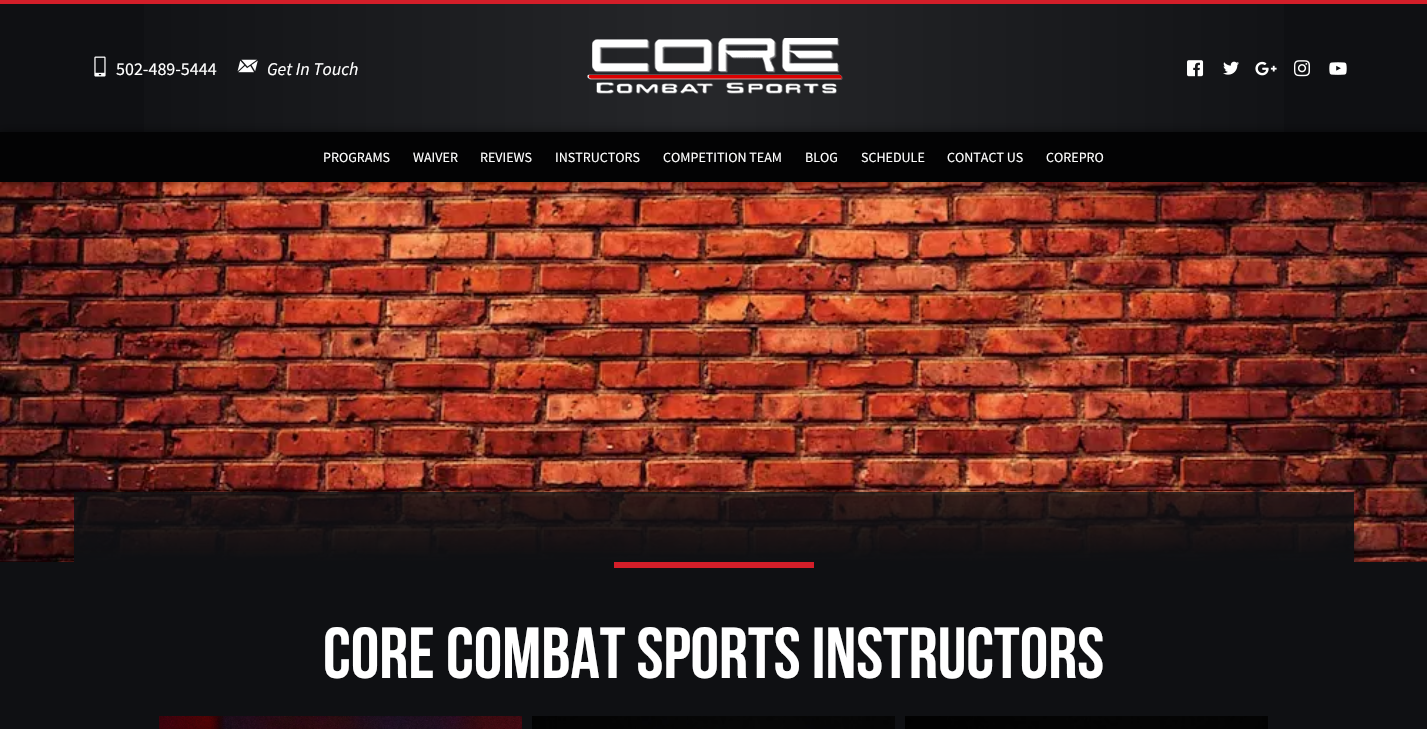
void draw(SkCanvas* canvas) {
    SkPaint paint;
    paint.setAntiAlias(true);
    canvas->clear(0xFF0F1013);
    paint.setColor(0xFFD31E29);
    canvas->drawRect(SkRect::MakeXYWH(0, 0, 1427, 4), paint);
    {
        const SkColor colors[] = {0xFF0F1013, 0xFF26272A, 0xFF0F1013};
        const float stops[] = {0, 0.5f, 1};
        const SkPoint ends[] = {{74, 68}, {1354, 68}};
        paint.setShader(SkGradientShader::MakeLinear(ends, colors, stops, 3, SkTileMode::kClamp));
        paint.setAlpha(255);
    }
    canvas->drawRect(SkRect::MakeXYWH(144, 4, 1140, 128), paint);
    canvas->drawImageRect(SkImages::DeferredFromEncodedData(SkData::MakeFromFileName("img1.png")), SkRect::MakeXYWH(94, 56, 12, 21), SkSamplingOptions());
    SkFont font1(fontMgr->matchFamilyStyle("Source Sans Pro", SkFontStyle::Normal()), 18);
    font1.setSubpixel(true);
    paint.setShader(nullptr);
    paint.setColor(0xFFFFFFFF);
    canvas->drawString("502-489-5444", 116, 75, font1, paint);
    canvas->drawImageRect(SkImages::DeferredFromEncodedData(SkData::MakeFromFileName("img2.png")), SkRect::MakeXYWH(237, 59, 21, 14), SkSamplingOptions());
    SkFont font2(fontMgr->matchFamilyStyle("Source Sans Pro", SkFontStyle::Italic()), 18);
    font2.setSubpixel(true);
    canvas->drawString("Get In Touch", 267, 75, font2, paint);
    canvas->drawImageRect(SkImages::DeferredFromEncodedData(SkData::MakeFromFileName("img3.png")), SkRect::MakeXYWH(587, 38, 256, 56), SkSamplingOptions());
    canvas->drawImageRect(SkImages::DeferredFromEncodedData(SkData::MakeFromFileName("img4.png")), SkRect::MakeXYWH(1187, 60, 17, 17), SkSamplingOptions());
    canvas->drawImageRect(SkImages::DeferredFromEncodedData(SkData::MakeFromFileName("img5.png")), SkRect::MakeXYWH(1223, 61, 16, 14), SkSamplingOptions());
    canvas->drawImageRect(SkImages::DeferredFromEncodedData(SkData::MakeFromFileName("img6.png")), SkRect::MakeXYWH(1255, 61, 22, 15), SkSamplingOptions());
    canvas->drawImageRect(SkImages::DeferredFromEncodedData(SkData::MakeFromFileName("img7.png")), SkRect::MakeXYWH(1294, 60, 16, 17), SkSamplingOptions());
    canvas->drawImageRect(SkImages::DeferredFromEncodedData(SkData::MakeFromFileName("img8.png")), SkRect::MakeXYWH(1329, 62, 18, 13), SkSamplingOptions());
    canvas->drawImageRect(SkImages::DeferredFromEncodedData(SkData::MakeFromFileName("img9.png")), SkRect::MakeXYWH(0, 182, 1427, 380), SkSamplingOptions());
    paint.setColor(0x80000000);
    paint.setMaskFilter(SkMaskFilter::MakeBlur(kNormal_SkBlurStyle, 5));
    canvas->drawRect(SkRect::MakeXYWH(0, 132, 1427, 50), paint);
    paint.setMaskFilter(nullptr);
    paint.setColor(0xFF030304);
    canvas->drawRect(SkRect::MakeXYWH(0, 132, 1427, 50), paint);
    SkFont font3(fontMgr->matchFamilyStyle("Source Sans Pro", SkFontStyle::Normal()), 14);
    font3.setSubpixel(true);
    paint.setColor(0xFFFFFFFF);
    canvas->drawString("PROGRAMS", 323, 162, font3, paint);
    canvas->drawString("WAIVER", 413, 162, font3, paint);
    canvas->drawString("REVIEWS", 480, 162, font3, paint);
    canvas->drawString("INSTRUCTORS", 555, 162, font3, paint);
    canvas->drawString("COMPETITION TEAM", 663, 162, font3, paint);
    canvas->drawString("BLOG", 805, 162, font3, paint);
    canvas->drawString("SCHEDULE", 861, 162, font3, paint);
    canvas->drawString("CONTACT US", 947, 162, font3, paint);
    canvas->drawString("COREPRO", 1046, 162, font3, paint);
    paint.setColor(0xFFD31E29);
    canvas->drawRect(SkRect::MakeXYWH(614, 562, 200, 6), paint);
    SkFont font4(fontMgr->matchFamilyStyle("Bebas Neue", SkFontStyle::Bold()), 72);
    font4.setSubpixel(true);
    paint.setColor(0xFFFFFFFF);
    canvas->drawString("Core Combat Sports Instructors", 323, 678, font4, paint);
    canvas->drawImageRect(SkImages::DeferredFromEncodedData(SkData::MakeFromFileName("img10.png")), SkRect::MakeXYWH(159, 716, 363, 13), SkSamplingOptions());
    canvas->drawImageRect(SkImages::DeferredFromEncodedData(SkData::MakeFromFileName("img11.png")), SkRect::MakeXYWH(532, 716, 363, 13), SkSamplingOptions());
    canvas->drawImageRect(SkImages::DeferredFromEncodedData(SkData::MakeFromFileName("img12.png")), SkRect::MakeXYWH(905, 716, 363, 13), SkSamplingOptions());
}
